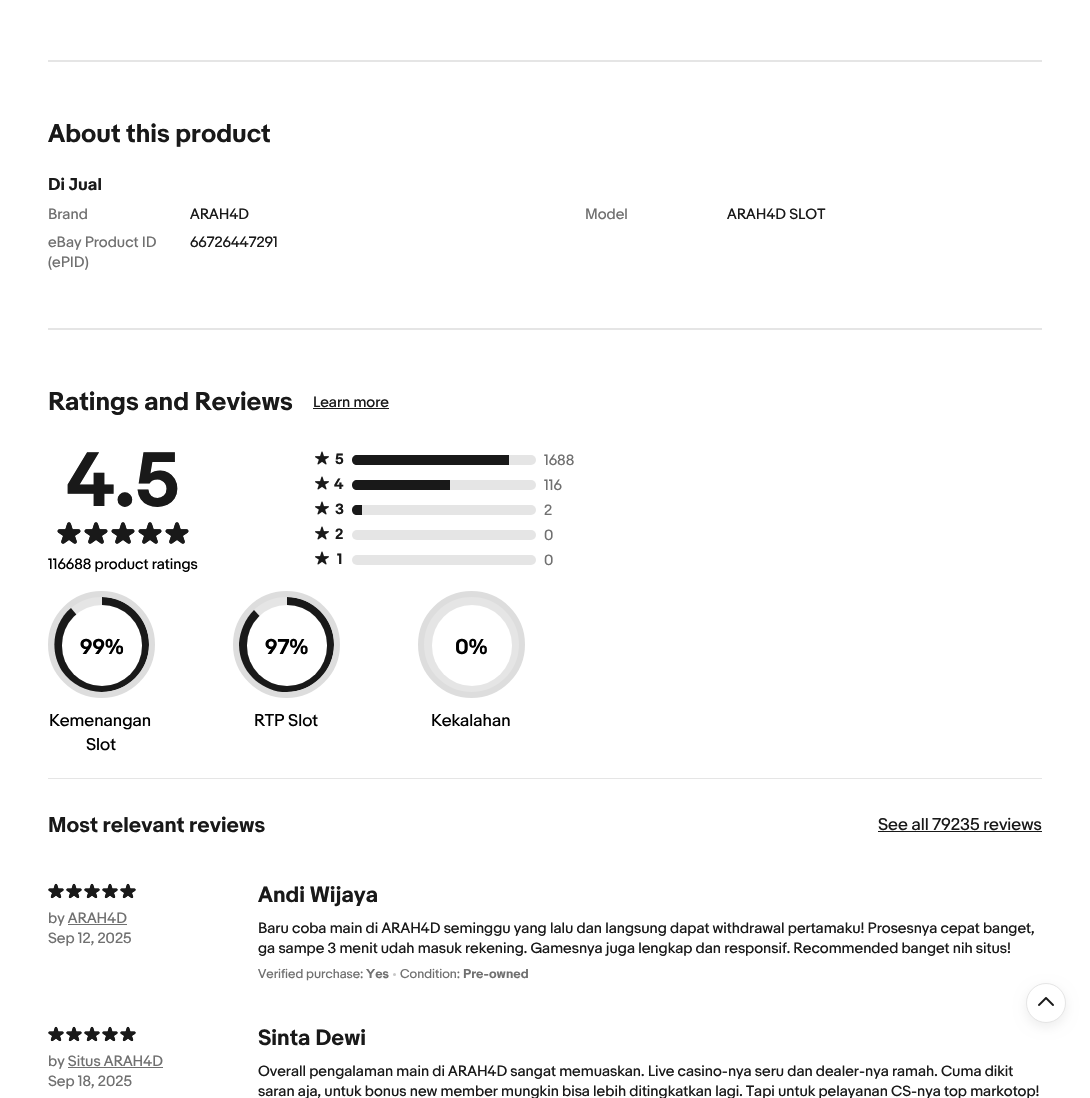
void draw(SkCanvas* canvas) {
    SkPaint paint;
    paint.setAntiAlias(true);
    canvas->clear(0xFFFFFFFF);
    paint.setColor(0xFFE5E5E5);
    canvas->drawRect(SkRect::MakeXYWH(48, 60, 994, 2), paint);
    SkFont font1(fontMgr->matchFamilyStyle("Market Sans", SkFontStyle::Bold()), 24);
    font1.setSubpixel(true);
    paint.setColor(0xFF191919);
    canvas->drawString("About this product", 48, 142, font1, paint);
    SkFont font2(fontMgr->matchFamilyStyle("Market Sans", SkFontStyle::Bold()), 16);
    font2.setSubpixel(true);
    canvas->drawString("Di Jual", 48, 190, font2, paint);
    SkFont font3(fontMgr->matchFamilyStyle("Market Sans", SkFontStyle::Normal()), 14);
    font3.setSubpixel(true);
    paint.setColor(0xFF707070);
    canvas->drawString("Brand", 48, 219, font3, paint);
    paint.setColor(0xFF191919);
    canvas->drawString("ARAH4D", 190, 219, font3, paint);
    paint.setColor(0xFF707070);
    canvas->drawString("Model", 585, 219, font3, paint);
    paint.setColor(0xFF191919);
    canvas->drawString("ARAH4D SLOT", 727, 219, font3, paint);
    paint.setColor(0xFF707070);
    canvas->drawString("eBay Product ID", 48, 247, font3, paint);
    canvas->drawString("(ePID)", 48, 267, font3, paint);
    paint.setColor(0xFF191919);
    canvas->drawString("66726447291", 190, 247, font3, paint);
    paint.setColor(0xFFE5E5E5);
    canvas->drawRect(SkRect::MakeXYWH(48, 328, 994, 2), paint);
    paint.setColor(0xFF191919);
    canvas->drawString("Ratings and Reviews", 48, 410, font1, paint);
    canvas->drawString("Learn more", 313, 407, font3, paint);
    canvas->drawRect(SkRect::MakeXYWH(313, 408, 76, 1), paint);
    SkFont font4(fontMgr->matchFamilyStyle("Market Sans", SkFontStyle::Bold()), 72);
    font4.setSubpixel(true);
    canvas->drawString("4.5", 66, 506, font4, paint);
    canvas->drawImageRect(SkImages::DeferredFromEncodedData(SkData::MakeFromFileName("img1.png")), SkRect::MakeXYWH(57, 522, 24, 22), SkSamplingOptions());
    canvas->drawImageRect(SkImages::DeferredFromEncodedData(SkData::MakeFromFileName("img1.png")), SkRect::MakeXYWH(84, 522, 24, 22), SkSamplingOptions());
    canvas->drawImageRect(SkImages::DeferredFromEncodedData(SkData::MakeFromFileName("img1.png")), SkRect::MakeXYWH(111, 522, 24, 22), SkSamplingOptions());
    canvas->drawImageRect(SkImages::DeferredFromEncodedData(SkData::MakeFromFileName("img1.png")), SkRect::MakeXYWH(138, 522, 24, 22), SkSamplingOptions());
    canvas->drawImageRect(SkImages::DeferredFromEncodedData(SkData::MakeFromFileName("img2.png")), SkRect::MakeXYWH(165, 522, 24, 22), SkSamplingOptions());
    paint.setColor(0xFF000000);
    canvas->drawString("116688 product ratings", 48, 569, font3, paint);
    canvas->drawImageRect(SkImages::DeferredFromEncodedData(SkData::MakeFromFileName("img3.png")), SkRect::MakeXYWH(315, 451, 14, 14), SkSamplingOptions());
    SkFont font5(fontMgr->matchFamilyStyle("Market Sans", SkFontStyle::Bold()), 14);
    font5.setSubpixel(true);
    paint.setColor(0xFF191919);
    canvas->drawString("5", 335, 464, font5, paint);
    paint.setColor(0xFFE5E5E5);
    canvas->drawRoundRect(SkRect::MakeXYWH(352, 455, 184, 10), 5, 5, paint);
    paint.setColor(0xFF191919);
    canvas->drawPath(SkPathBuilder().moveTo(357, 455).lineTo(509, 455).lineTo(509, 465).lineTo(357, 465).cubicTo(354, 465, 352, 463, 352, 460).cubicTo(352, 457, 354, 455, 357, 455).close().detach(), paint);
    paint.setColor(0xFF707070);
    canvas->drawString("1688", 544, 465, font3, paint);
    canvas->drawImageRect(SkImages::DeferredFromEncodedData(SkData::MakeFromFileName("img3.png")), SkRect::MakeXYWH(315, 476, 14, 14), SkSamplingOptions());
    paint.setColor(0xFF191919);
    canvas->drawString("4", 334, 489, font5, paint);
    paint.setColor(0xFFE5E5E5);
    canvas->drawRoundRect(SkRect::MakeXYWH(352, 480, 184, 10), 5, 5, paint);
    paint.setColor(0xFF191919);
    canvas->drawPath(SkPathBuilder().moveTo(357, 480).lineTo(450, 480).lineTo(450, 490).lineTo(357, 490).cubicTo(354, 490, 352, 488, 352, 485).cubicTo(352, 482, 354, 480, 357, 480).close().detach(), paint);
    paint.setColor(0xFF707070);
    canvas->drawString("116", 544, 490, font3, paint);
    canvas->drawImageRect(SkImages::DeferredFromEncodedData(SkData::MakeFromFileName("img3.png")), SkRect::MakeXYWH(315, 501, 14, 14), SkSamplingOptions());
    paint.setColor(0xFF191919);
    canvas->drawString("3", 335, 514, font5, paint);
    paint.setColor(0xFFE5E5E5);
    canvas->drawRoundRect(SkRect::MakeXYWH(352, 505, 184, 10), 5, 5, paint);
    paint.setColor(0xFF191919);
    canvas->drawPath(SkPathBuilder().moveTo(357, 505).lineTo(362, 505).lineTo(362, 515).lineTo(357, 515).cubicTo(354, 515, 352, 513, 352, 510).cubicTo(352, 507, 354, 505, 357, 505).close().detach(), paint);
    paint.setColor(0xFF707070);
    canvas->drawString("2", 544, 515, font3, paint);
    canvas->drawImageRect(SkImages::DeferredFromEncodedData(SkData::MakeFromFileName("img3.png")), SkRect::MakeXYWH(315, 526, 14, 14), SkSamplingOptions());
    paint.setColor(0xFF191919);
    canvas->drawString("2", 335, 539, font5, paint);
    paint.setColor(0xFFE5E5E5);
    canvas->drawRoundRect(SkRect::MakeXYWH(352, 530, 184, 10), 5, 5, paint);
    paint.setColor(0xFF707070);
    canvas->drawString("0", 544, 540, font3, paint);
    canvas->drawImageRect(SkImages::DeferredFromEncodedData(SkData::MakeFromFileName("img3.png")), SkRect::MakeXYWH(315, 551, 14, 14), SkSamplingOptions());
    paint.setColor(0xFF191919);
    canvas->drawString("1", 337, 564, font5, paint);
    paint.setColor(0xFFE5E5E5);
    canvas->drawRoundRect(SkRect::MakeXYWH(352, 555, 184, 10), 5, 5, paint);
    paint.setColor(0xFF707070);
    canvas->drawString("0", 544, 565, font3, paint);
    paint.setColor(0xFFE5E5E5);
    canvas->drawCircle(101.5f, 644.5f, 50.5f, paint);
    paint.setStyle(SkPaint::kStroke_Style);
    paint.setStrokeWidth(6);
    paint.setColor(0xFFDDDDDD);
    canvas->drawCircle(101.5f, 644.5f, 50.5f, paint);
    canvas->save();
    canvas->clipPath(SkPathBuilder().moveTo(101.5f, 597).cubicTo(127.5f, 597, 149, 618.5f, 149, 644.5f).cubicTo(149, 670.5f, 127.5f, 692, 101.5f, 692).cubicTo(75.5f, 692, 54, 670.5f, 54, 644.5f).cubicTo(54, 618.5f, 75.5f, 597, 101.5f, 597).close().detach(), true);
    paint.setStyle(SkPaint::kFill_Style);
    paint.setColor(0xFF191919);
    canvas->drawPath(SkPathBuilder().moveTo(102, 597).cubicTo(128, 597, 149, 618, 149, 644).lineTo(149, 645).cubicTo(149, 671, 128, 692, 102, 692).close().detach(), paint);
    canvas->restore();
    canvas->save();
    canvas->clipRect(SkRect::MakeXYWH(54, 597, 48, 95));
    canvas->drawPath(SkPathBuilder().moveTo(71, 608).lineTo(131, 681).cubicTo(110, 699, 78, 694, 62, 671).cubicTo(49, 651, 53, 623, 71, 608).close().detach(), paint);
    canvas->restore();
    paint.setColor(0xFFFFFFFF);
    canvas->drawRoundRect(SkRect::MakeXYWH(62, 605, 80, 81), 40, 40, paint);
    SkFont font6(fontMgr->matchFamilyStyle("Market Sans", SkFontStyle::Bold()), 20);
    font6.setSubpixel(true);
    paint.setColor(0xFF000000);
    canvas->drawString("99%", 80, 654, font6, paint);
    SkFont font7(fontMgr->matchFamilyStyle("Market Sans", SkFontStyle::Normal()), 16);
    font7.setSubpixel(true);
    canvas->drawString("Kemenangan", 49, 726, font7, paint);
    canvas->drawString("Slot", 86, 750, font7, paint);
    paint.setColor(0xFFE5E5E5);
    canvas->drawCircle(286.5f, 644.5f, 50.5f, paint);
    paint.setStyle(SkPaint::kStroke_Style);
    paint.setColor(0xFFDDDDDD);
    canvas->drawCircle(286.5f, 644.5f, 50.5f, paint);
    canvas->save();
    canvas->clipPath(SkPathBuilder().moveTo(286.5f, 597).cubicTo(312.5f, 597, 334, 618.5f, 334, 644.5f).cubicTo(334, 670.5f, 312.5f, 692, 286.5f, 692).cubicTo(260.5f, 692, 239, 670.5f, 239, 644.5f).cubicTo(239, 618.5f, 260.5f, 597, 286.5f, 597).close().detach(), true);
    paint.setStyle(SkPaint::kFill_Style);
    paint.setColor(0xFF191919);
    canvas->drawPath(SkPathBuilder().moveTo(287, 597).cubicTo(313, 597, 334, 618, 334, 644).lineTo(334, 645).cubicTo(334, 671, 313, 692, 287, 692).close().detach(), paint);
    canvas->restore();
    canvas->save();
    canvas->clipRect(SkRect::MakeXYWH(239, 597, 48, 95));
    canvas->drawPath(SkPathBuilder().moveTo(254, 610).lineTo(319, 680).cubicTo(288, 708, 238, 685, 239, 643).cubicTo(240, 631, 245, 619, 254, 610).close().detach(), paint);
    canvas->restore();
    paint.setColor(0xFFFFFFFF);
    canvas->drawRoundRect(SkRect::MakeXYWH(247, 605, 80, 81), 40, 40, paint);
    paint.setColor(0xFF000000);
    canvas->drawString("97%", 265, 654, font6, paint);
    canvas->drawString("RTP Slot", 254, 726, font7, paint);
    paint.setColor(0xFFE5E5E5);
    canvas->drawCircle(471.5f, 644.5f, 50.5f, paint);
    paint.setStyle(SkPaint::kStroke_Style);
    paint.setColor(0xFFDDDDDD);
    canvas->drawCircle(471.5f, 644.5f, 50.5f, paint);
    paint.setStyle(SkPaint::kFill_Style);
    paint.setColor(0xFFFFFFFF);
    canvas->drawRoundRect(SkRect::MakeXYWH(432, 605, 80, 81), 40, 40, paint);
    paint.setColor(0xFF000000);
    canvas->drawString("0%", 455, 654, font6, paint);
    canvas->drawString("Kekalahan", 431, 726, font7, paint);
    paint.setColor(0xFFE5E5E5);
    canvas->drawRect(SkRect::MakeXYWH(48, 778, 994, 1), paint);
    paint.setColor(0xFF191919);
    canvas->drawString("Most relevant reviews", 48, 832, font6, paint);
    canvas->drawString("See all 79235 reviews", 878, 830, font7, paint);
    canvas->drawRect(SkRect::MakeXYWH(878, 831, 164, 1), paint);
    canvas->drawImageRect(SkImages::DeferredFromEncodedData(SkData::MakeFromFileName("img4.png")), SkRect::MakeXYWH(48, 883, 16, 16), SkSamplingOptions());
    canvas->drawImageRect(SkImages::DeferredFromEncodedData(SkData::MakeFromFileName("img4.png")), SkRect::MakeXYWH(66, 883, 16, 16), SkSamplingOptions());
    canvas->drawImageRect(SkImages::DeferredFromEncodedData(SkData::MakeFromFileName("img4.png")), SkRect::MakeXYWH(84, 883, 16, 16), SkSamplingOptions());
    canvas->drawImageRect(SkImages::DeferredFromEncodedData(SkData::MakeFromFileName("img4.png")), SkRect::MakeXYWH(102, 883, 16, 16), SkSamplingOptions());
    canvas->drawImageRect(SkImages::DeferredFromEncodedData(SkData::MakeFromFileName("img4.png")), SkRect::MakeXYWH(120, 883, 16, 16), SkSamplingOptions());
    paint.setColor(0xFF707070);
    canvas->drawString("by ARAH4D", 48, 923, font3, paint);
    canvas->drawRect(SkRect::MakeXYWH(68, 924, 59, 1), paint);
    canvas->drawString("Sep 12, 2025", 48, 943, font3, paint);
    SkFont font8(fontMgr->matchFamilyStyle("Market Sans", SkFontStyle::Bold()), 20.75f);
    font8.setSubpixel(true);
    paint.setColor(0xFF191919);
    canvas->drawString("Andi Wijaya", 258, 902, font8, paint);
    canvas->drawString("Baru coba main di ARAH4D seminggu yang lalu dan langsung dapat withdrawal pertamaku! Prosesnya cepat banget,", 258, 933, font3, paint);
    canvas->drawString("ga sampe 3 menit udah masuk rekening. Gamesnya juga lengkap dan responsif. Recommended banget nih situs!", 258, 953, font3, paint);
    SkFont font9(fontMgr->matchFamilyStyle("Market Sans", SkFontStyle::Normal()), 12);
    font9.setSubpixel(true);
    paint.setColor(0xFF707070);
    canvas->drawString("Verified purchase:", 258, 978, font9, paint);
    SkFont font10(fontMgr->matchFamilyStyle("Market Sans", SkFontStyle::Bold()), 12);
    font10.setSubpixel(true);
    canvas->drawString("Yes", 366, 978, font10, paint);
    paint.setColor(0xFFC7C7C7);
    canvas->drawCircle(394.5f, 974.5f, 1.5f, paint);
    paint.setColor(0xFF707070);
    canvas->drawString("Condition:", 400, 978, font9, paint);
    canvas->drawString("Pre-owned", 463, 978, font10, paint);
    canvas->drawImageRect(SkImages::DeferredFromEncodedData(SkData::MakeFromFileName("img4.png")), SkRect::MakeXYWH(48, 1026, 16, 16), SkSamplingOptions());
    canvas->drawImageRect(SkImages::DeferredFromEncodedData(SkData::MakeFromFileName("img4.png")), SkRect::MakeXYWH(66, 1026, 16, 16), SkSamplingOptions());
    canvas->drawImageRect(SkImages::DeferredFromEncodedData(SkData::MakeFromFileName("img4.png")), SkRect::MakeXYWH(84, 1026, 16, 16), SkSamplingOptions());
    canvas->drawImageRect(SkImages::DeferredFromEncodedData(SkData::MakeFromFileName("img4.png")), SkRect::MakeXYWH(102, 1026, 16, 16), SkSamplingOptions());
    canvas->drawImageRect(SkImages::DeferredFromEncodedData(SkData::MakeFromFileName("img4.png")), SkRect::MakeXYWH(120, 1026, 16, 16), SkSamplingOptions());
    canvas->drawString("by Situs ARAH4D", 48, 1066, font3, paint);
    canvas->drawRect(SkRect::MakeXYWH(68, 1067, 95, 1), paint);
    canvas->drawString("Sep 18, 2025", 48, 1086, font3, paint);
    paint.setColor(0xFF191919);
    canvas->drawString("Sinta Dewi", 258, 1045, font8, paint);
    canvas->drawString("Overall pengalaman main di ARAH4D sangat memuaskan. Live casino-nya seru dan dealer-nya ramah. Cuma dikit", 258, 1076, font3, paint);
    canvas->drawString("saran aja, untuk bonus new member mungkin bisa lebih ditingkatkan lagi. Tapi untuk pelayanan CS-nya top markotop!", 258, 1096, font3, paint);
    paint.setColor(0x12000000);
    paint.setMaskFilter(SkMaskFilter::MakeBlur(kNormal_SkBlurStyle, 6));
    canvas->drawRoundRect(SkRect::MakeXYWH(1026, 987, 40, 40), 20, 20, paint);
    paint.setMaskFilter(nullptr);
    paint.setColor(0xFFFFFFFF);
    canvas->drawCircle(1046, 1003, 19.5f, paint);
    paint.setStyle(SkPaint::kStroke_Style);
    paint.setStrokeWidth(1);
    paint.setColor(0xFFE5E5E5);
    canvas->drawCircle(1046, 1003, 19.5f, paint);
    canvas->drawImageRect(SkImages::DeferredFromEncodedData(SkData::MakeFromFileName("img5.png")), SkRect::MakeXYWH(1038, 997, 16, 9), SkSamplingOptions());
}
